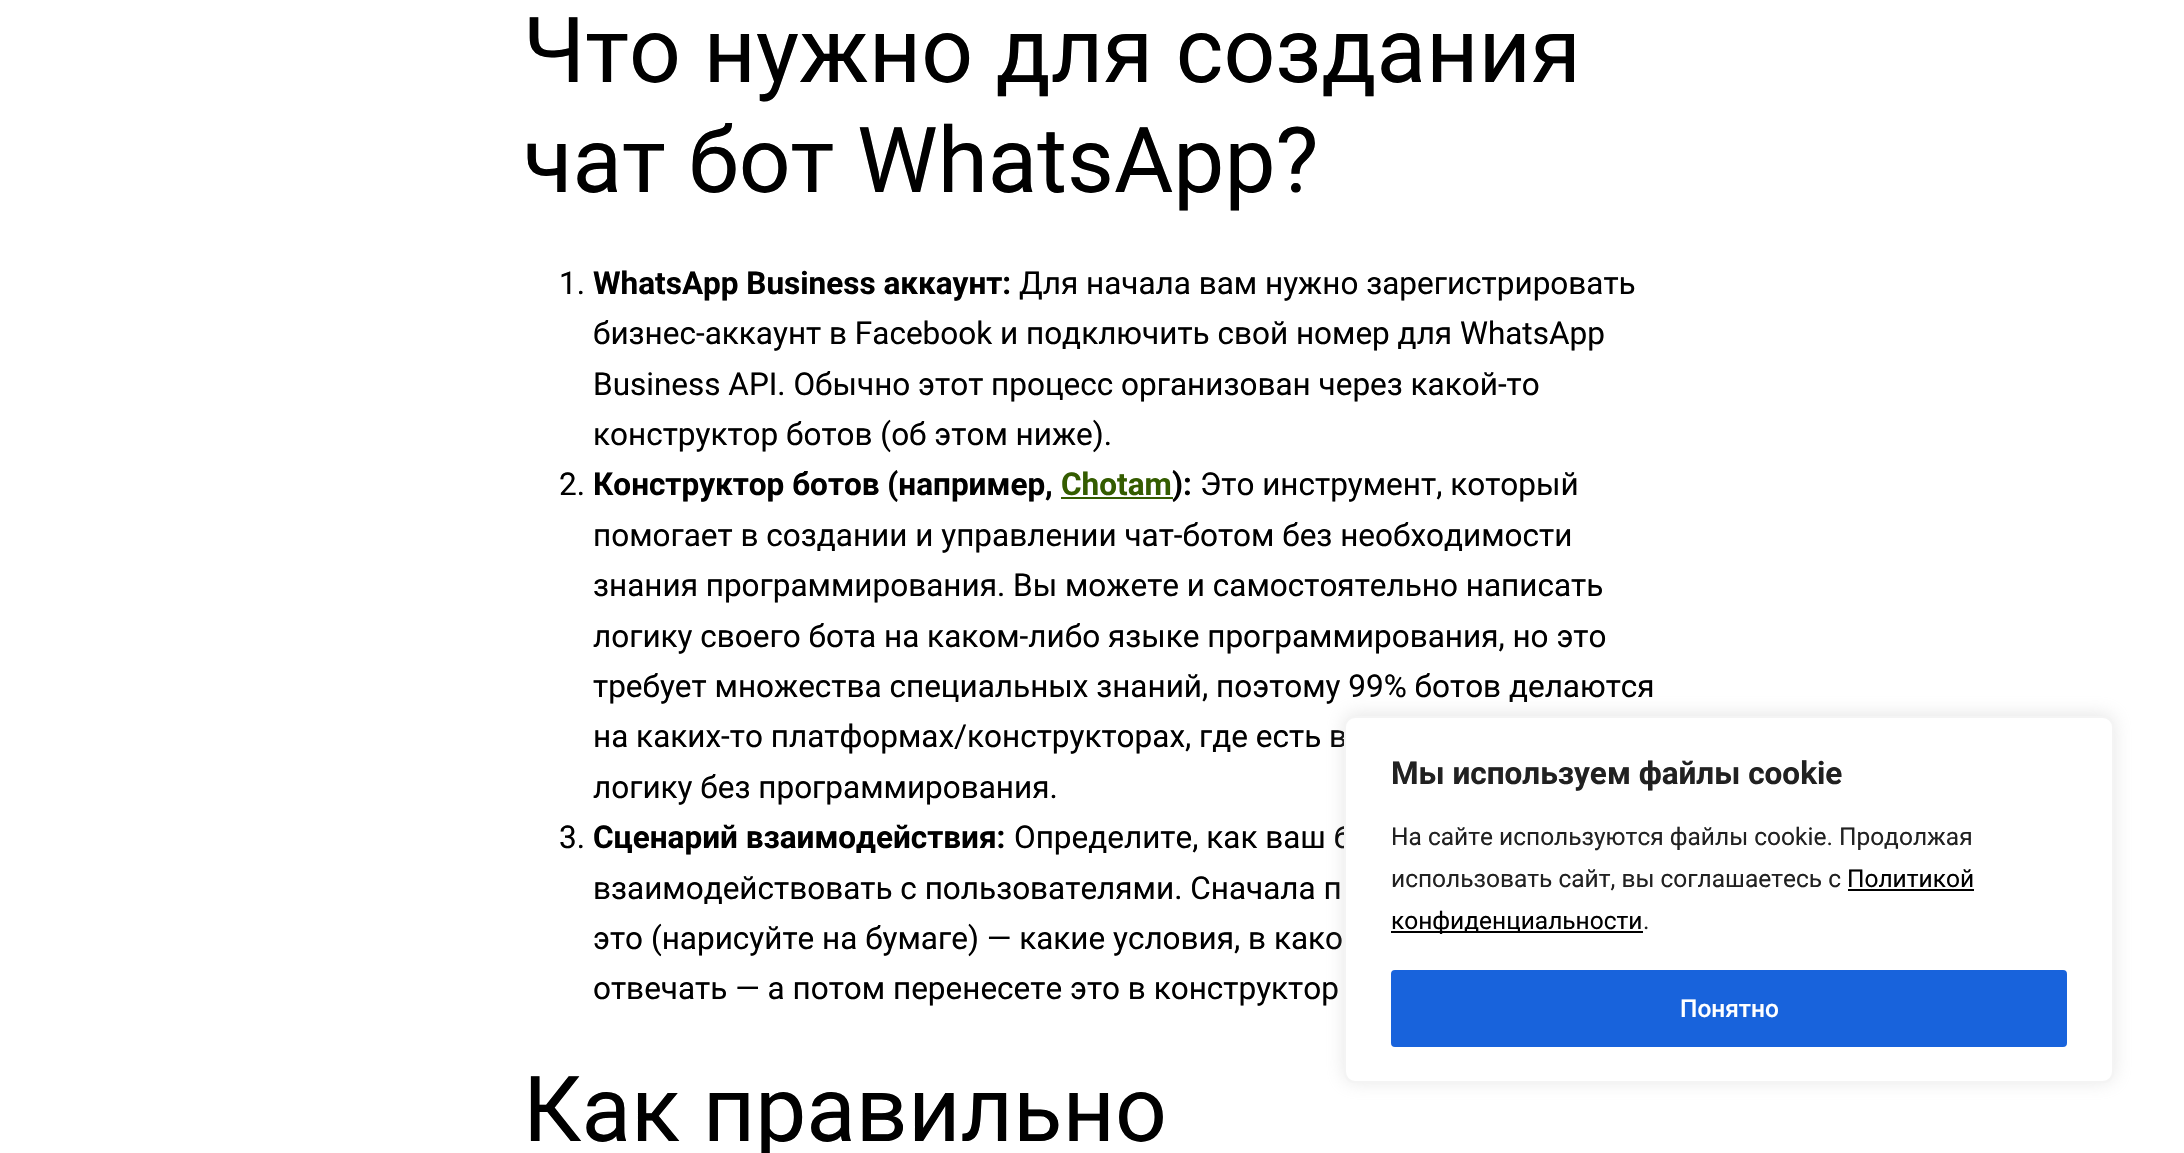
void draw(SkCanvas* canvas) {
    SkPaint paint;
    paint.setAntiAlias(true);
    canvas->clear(0xFFFFFFFF);
    SkFont font1(fontMgr->matchFamilyStyle("Roboto", SkFontStyle::Normal()), 91);
    font1.setSubpixel(true);
    paint.setColor(0xFF000000);
    canvas->drawString("Что нужно для создания", 523, 82, font1, paint);
    canvas->drawString("чат бот WhatsApp?", 523, 192, font1, paint);
    SkFont font2(fontMgr->matchFamilyStyle("Roboto", SkFontStyle::Normal()), 31.5f);
    font2.setSubpixel(true);
    canvas->drawString("1.", 559, 294, font2, paint);
    SkFont font3(fontMgr->matchFamilyStyle("Roboto", SkFontStyle::Bold()), 31.5f);
    font3.setSubpixel(true);
    canvas->drawString("WhatsApp Business аккаунт:", 593, 294, font3, paint);
    canvas->drawString("Для начала вам нужно зарегистрировать", 1019, 294, font2, paint);
    canvas->drawString("бизнес-аккаунт в Facebook и подключить свой номер для WhatsApp", 593, 344, font2, paint);
    canvas->drawString("Business API. Обычно этот процесс организован через какой-то", 593, 395, font2, paint);
    canvas->drawString("конструктор ботов (об этом ниже).", 593, 445, font2, paint);
    canvas->drawString("2.", 559, 495, font2, paint);
    canvas->drawString("Конструктор ботов (например,", 593, 495, font3, paint);
    paint.setColor(0xFF345C00);
    canvas->drawString("Chotam", 1061, 495, font3, paint);
    canvas->drawRect(SkRect::MakeXYWH(1061, 497, 112, 2), paint);
    paint.setColor(0xFF000000);
    canvas->drawString("):", 1172, 495, font3, paint);
    canvas->drawString("Это инструмент, который", 1200, 495, font2, paint);
    canvas->drawString("помогает в создании и управлении чат-ботом без необходимости", 593, 546, font2, paint);
    canvas->drawString("знания программирования. Вы можете и самостоятельно написать", 593, 596, font2, paint);
    canvas->drawString("логику своего бота на каком-либо языке программирования, но это", 593, 647, font2, paint);
    canvas->drawString("требует множества специальных знаний, поэтому 99% ботов делаются", 593, 697, font2, paint);
    canvas->drawString("на каких-то платформах/конструкторах, где есть в", 593, 747, font2, paint);
    canvas->drawString("логику без программирования.", 593, 798, font2, paint);
    canvas->drawString("3.", 559, 848, font2, paint);
    canvas->drawString("Сценарий взаимодействия:", 593, 848, font3, paint);
    canvas->drawString("Определите, как ваш б", 1014, 848, font2, paint);
    canvas->drawString("взаимодействовать с пользователями. Сначала п", 593, 899, font2, paint);
    canvas->drawString("это (нарисуйте на бумаге) — какие условия, в како", 593, 949, font2, paint);
    canvas->drawString("отвечать — а потом перенесете это в конструктор", 593, 999, font2, paint);
    canvas->drawString("Как правильно", 523, 1141, font1, paint);
    paint.setColor(0x4DACABAB);
    paint.setMaskFilter(SkMaskFilter::MakeBlur(kNormal_SkBlurStyle, 9));
    canvas->drawRoundRect(SkRect::MakeXYWH(1344, 714, 770, 368), 11, 11, paint);
    paint.setMaskFilter(nullptr);
    paint.setColor(0xFFFFFFFF);
    canvas->drawRoundRect(SkRect::MakeXYWH(1345, 717, 768, 365), 10, 10, paint);
    paint.setStyle(SkPaint::kStroke_Style);
    paint.setStrokeWidth(2);
    paint.setColor(0xFFF4F4F4);
    canvas->drawRoundRect(SkRect::MakeXYWH(1345, 717, 768, 365), 10, 10, paint);
    paint.setStyle(SkPaint::kFill_Style);
    paint.setColor(0xFF212121);
    canvas->drawString("Мы используем файлы cookie", 1391, 784, font3, paint);
    SkFont font4(fontMgr->matchFamilyStyle("Roboto", SkFontStyle::Normal()), 24.5f);
    font4.setSubpixel(true);
    canvas->drawString("На сайте используются файлы cookie. Продолжая", 1391, 845, font4, paint);
    canvas->drawString("использовать сайт, вы соглашаетесь с", 1391, 887, font4, paint);
    paint.setColor(0xFF000000);
    canvas->drawString("Политикой", 1847, 887, font4, paint);
    canvas->drawRect(SkRect::MakeXYWH(1848, 889, 126, 2), paint);
    canvas->drawRect(SkRect::MakeXYWH(1391, 931, 252, 2), paint);
    canvas->drawString("конфиденциальности", 1391, 929, font4, paint);
    paint.setColor(0xFF212121);
    canvas->drawString(".", 1643, 929, font4, paint);
    paint.setColor(0xFF1863DC);
    canvas->drawRoundRect(SkRect::MakeXYWH(1393, 972, 672, 73), 2, 2, paint);
    paint.setStyle(SkPaint::kStroke_Style);
    paint.setStrokeWidth(4);
    canvas->drawRoundRect(SkRect::MakeXYWH(1393, 972, 672, 73), 2, 2, paint);
    SkFont font5(fontMgr->matchFamilyStyle("Roboto", SkFontStyle(500, SkFontStyle::kNormal_Width, SkFontStyle::kUpright_Slant)), 24.5f);
    font5.setSubpixel(true);
    paint.setStyle(SkPaint::kFill_Style);
    paint.setColor(0xFFFFFFFF);
    canvas->drawString("Понятно", 1680, 1017, font5, paint);
}
